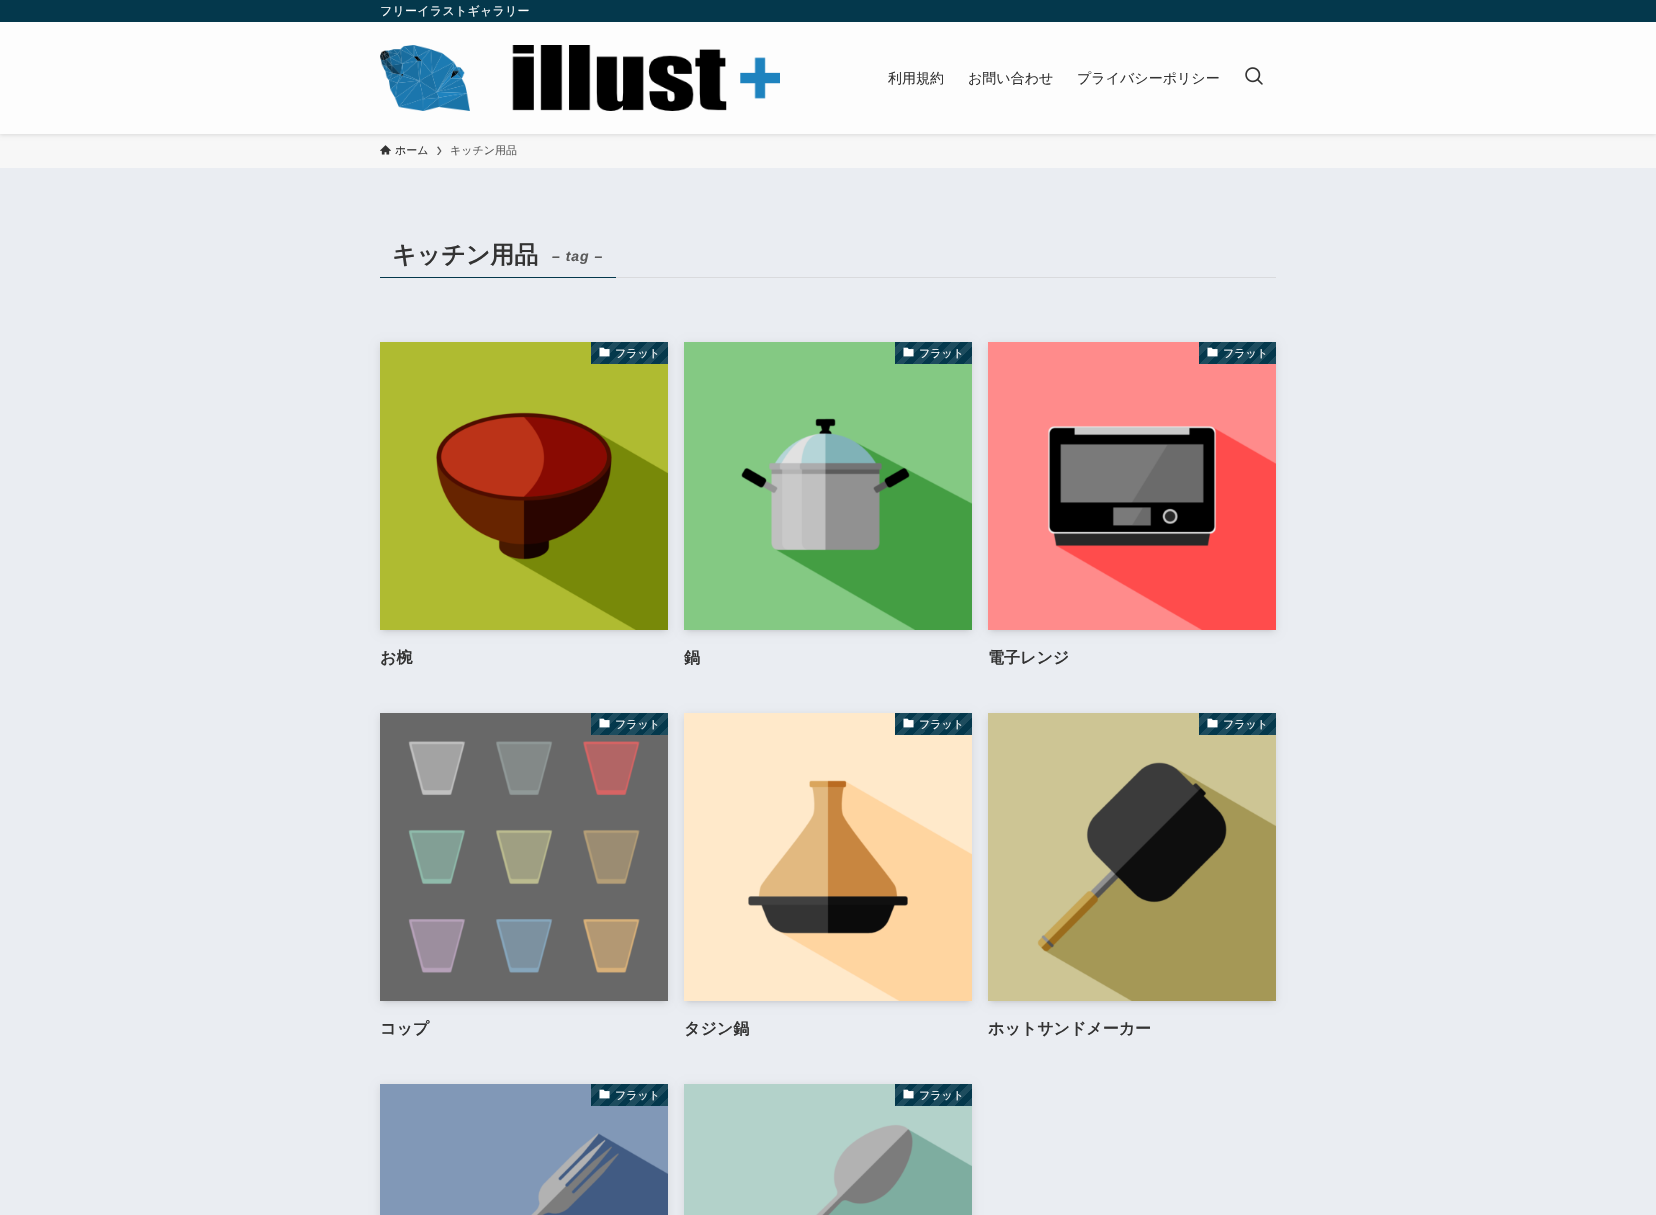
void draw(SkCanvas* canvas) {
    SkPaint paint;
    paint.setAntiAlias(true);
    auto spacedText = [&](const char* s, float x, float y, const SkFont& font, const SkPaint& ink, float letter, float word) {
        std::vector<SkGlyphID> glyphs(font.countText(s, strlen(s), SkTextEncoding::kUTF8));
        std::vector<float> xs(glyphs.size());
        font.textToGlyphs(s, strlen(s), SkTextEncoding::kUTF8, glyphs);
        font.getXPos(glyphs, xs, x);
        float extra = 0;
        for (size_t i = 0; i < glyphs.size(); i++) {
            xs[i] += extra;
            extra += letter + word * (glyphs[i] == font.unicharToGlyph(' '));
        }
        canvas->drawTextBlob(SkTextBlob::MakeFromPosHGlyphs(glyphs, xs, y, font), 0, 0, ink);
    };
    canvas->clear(0xFFEAEDF2);
    paint.setColor(0xFFF7F7F7);
    canvas->drawRect(SkRect::MakeXYWH(0, 134, 1656, 34), paint);
    paint.setColor(0x1F000000);
    paint.setMaskFilter(SkMaskFilter::MakeBlur(kNormal_SkBlurStyle, 2));
    canvas->drawRect(SkRect::MakeXYWH(0, 1, 1656, 134), paint);
    paint.setMaskFilter(nullptr);
    paint.setColor(0xFFFDFDFD);
    canvas->drawRect(SkRect::MakeXYWH(0, 22, 1656, 112), paint);
    paint.setColor(0xFF04384C);
    canvas->drawRect(SkRect::MakeXYWH(0, 0, 1656, 22), paint);
    SkFont font1(fontMgr->matchFamilyStyle("WenQuanYi Zen Hei", SkFontStyle(500, SkFontStyle::kNormal_Width, SkFontStyle::kUpright_Slant)), 12);
    font1.setSubpixel(true);
    paint.setColor(0xFFFFFFFF);
    spacedText("フリーイラストギャラリー", 380, 15, font1, paint, 0.25f, 0);
    canvas->drawImageRect(SkImages::DeferredFromEncodedData(SkData::MakeFromFileName("img1.png")), SkRect::MakeXYWH(380, 45, 400, 66), SkSamplingOptions());
    SkFont font2(fontMgr->matchFamilyStyle("WenQuanYi Zen Hei", SkFontStyle(500, SkFontStyle::kNormal_Width, SkFontStyle::kUpright_Slant)), 14);
    font2.setSubpixel(true);
    paint.setColor(0xFF333333);
    canvas->drawString("利用規約", 888, 83, font2, paint);
    canvas->drawString("お問い合わせ", 968, 83, font2, paint);
    canvas->drawString("プライバシーポリシー", 1077, 83, font2, paint);
    canvas->drawImageRect(SkImages::DeferredFromEncodedData(SkData::MakeFromFileName("img2.png")), SkRect::MakeXYWH(1245, 67, 18, 18), SkSamplingOptions());
    canvas->drawImageRect(SkImages::DeferredFromEncodedData(SkData::MakeFromFileName("img3.png")), SkRect::MakeXYWH(380, 145, 11, 10), SkSamplingOptions());
    SkFont font3(fontMgr->matchFamilyStyle("WenQuanYi Zen Hei", SkFontStyle(500, SkFontStyle::kNormal_Width, SkFontStyle::kUpright_Slant)), 11);
    font3.setSubpixel(true);
    canvas->drawString("ホーム", 395, 154, font3, paint);
    paint.setColor(0xFF5A5A5A);
    canvas->drawPath(SkPathBuilder().moveTo(438.5f, 146.5f).lineTo(437, 147).lineTo(440, 151).lineTo(437, 155).lineTo(438.5f, 155).lineTo(441.5f, 151).close().detach(), paint);
    canvas->drawString("キッチン用品", 450, 154, font3, paint);
    paint.setColor(0xFFD9DADD);
    canvas->drawRect(SkRect::MakeXYWH(616, 277, 660, 1), paint);
    paint.setColor(0xFF04384C);
    canvas->drawRect(SkRect::MakeXYWH(380, 277, 236, 1), paint);
    SkFont font4(fontMgr->matchFamilyStyle("WenQuanYi Zen Hei", SkFontStyle::Bold()), 24);
    font4.setSubpixel(true);
    paint.setColor(0xFF333333);
    canvas->drawString("キッチン用品", 392, 263, font4, paint);
    SkFont font5(fontMgr->matchFamilyStyle("Liberation Sans", SkFontStyle::BoldItalic()), 14);
    font5.setSubpixel(true);
    paint.setColor(0xFF5A5A5A);
    spacedText("– tag –", 552, 261, font5, paint, 1, 0);
    paint.setColor(0x1A000000);
    paint.setMaskFilter(SkMaskFilter::MakeBlur(kNormal_SkBlurStyle, 2));
    canvas->drawRect(SkRect::MakeXYWH(384, 350, 280, 280), paint);
    paint.setMaskFilter(nullptr);
    paint.setMaskFilter(SkMaskFilter::MakeBlur(kNormal_SkBlurStyle, 4));
    canvas->drawRect(SkRect::MakeXYWH(380, 344, 288, 288), paint);
    paint.setMaskFilter(nullptr);
    canvas->drawImageRect(SkImages::DeferredFromEncodedData(SkData::MakeFromFileName("img4.png")), SkRect::MakeXYWH(380, 342, 288, 288), SkSamplingOptions());
    {
        const SkColor colors[] = {0xFF1D4C5E, 0xFF1D4C5E, 0xFF04384C, 0xFF04384C, 0xFF1D4C5E, 0xFF1D4C5E, 0xFF04384C, 0xFF04384C, 0xFF1D4C5E, 0xFF1D4C5E, 0xFF04384C, 0xFF04384C, 0xFF1D4C5E, 0xFF1D4C5E, 0xFF04384C, 0xFF04384C, 0xFF1D4C5E, 0xFF1D4C5E, 0xFF04384C, 0xFF04384C, 0xFF1D4C5E, 0xFF1D4C5E, 0xFF04384C, 0xFF04384C};
        const float stops[] = {0, 0.08f, 0.08f, 0.17f, 0.17f, 0.25f, 0.25f, 0.33f, 0.33f, 0.42f, 0.42f, 0.5f, 0.5f, 0.58f, 0.58f, 0.67f, 0.67f, 0.75f, 0.75f, 0.83f, 0.83f, 0.92f, 0.92f, 1};
        const SkPoint ends[] = {{654, 378}, {603, 327}};
        paint.setShader(SkGradientShader::MakeLinear(ends, colors, stops, 24, SkTileMode::kClamp));
        paint.setAlpha(255);
    }
    canvas->drawRect(SkRect::MakeXYWH(591, 342, 77, 22), paint);
    canvas->drawImageRect(SkImages::DeferredFromEncodedData(SkData::MakeFromFileName("img5.png")), SkRect::MakeXYWH(599, 347, 11, 10), SkSamplingOptions());
    paint.setShader(nullptr);
    paint.setColor(0xFFFFFFFF);
    canvas->drawString("フラット", 615, 357, font3, paint);
    SkFont font6(fontMgr->matchFamilyStyle("WenQuanYi Zen Hei", SkFontStyle::Bold()), 16);
    font6.setSubpixel(true);
    paint.setColor(0xFF333333);
    canvas->drawString("お椀", 380, 663, font6, paint);
    paint.setColor(0x1A000000);
    paint.setMaskFilter(SkMaskFilter::MakeBlur(kNormal_SkBlurStyle, 2));
    canvas->drawRect(SkRect::MakeXYWH(688, 350, 280, 280), paint);
    paint.setMaskFilter(nullptr);
    paint.setMaskFilter(SkMaskFilter::MakeBlur(kNormal_SkBlurStyle, 4));
    canvas->drawRect(SkRect::MakeXYWH(684, 344, 288, 288), paint);
    paint.setMaskFilter(nullptr);
    canvas->drawImageRect(SkImages::DeferredFromEncodedData(SkData::MakeFromFileName("img6.png")), SkRect::MakeXYWH(684, 342, 288, 288), SkSamplingOptions());
    {
        const SkColor colors[] = {0xFF1D4C5E, 0xFF1D4C5E, 0xFF04384C, 0xFF04384C, 0xFF1D4C5E, 0xFF1D4C5E, 0xFF04384C, 0xFF04384C, 0xFF1D4C5E, 0xFF1D4C5E, 0xFF04384C, 0xFF04384C, 0xFF1D4C5E, 0xFF1D4C5E, 0xFF04384C, 0xFF04384C, 0xFF1D4C5E, 0xFF1D4C5E, 0xFF04384C, 0xFF04384C, 0xFF1D4C5E, 0xFF1D4C5E, 0xFF04384C, 0xFF04384C};
        const float stops[] = {0, 0.08f, 0.08f, 0.17f, 0.17f, 0.25f, 0.25f, 0.33f, 0.33f, 0.42f, 0.42f, 0.5f, 0.5f, 0.58f, 0.58f, 0.67f, 0.67f, 0.75f, 0.75f, 0.83f, 0.83f, 0.92f, 0.92f, 1};
        const SkPoint ends[] = {{958, 378}, {907, 327}};
        paint.setShader(SkGradientShader::MakeLinear(ends, colors, stops, 24, SkTileMode::kClamp));
        paint.setAlpha(255);
    }
    canvas->drawRect(SkRect::MakeXYWH(895, 342, 77, 22), paint);
    canvas->drawImageRect(SkImages::DeferredFromEncodedData(SkData::MakeFromFileName("img5.png")), SkRect::MakeXYWH(903, 347, 11, 10), SkSamplingOptions());
    paint.setShader(nullptr);
    paint.setColor(0xFFFFFFFF);
    canvas->drawString("フラット", 919, 357, font3, paint);
    paint.setColor(0xFF333333);
    canvas->drawString("鍋", 684, 663, font6, paint);
    paint.setColor(0x1A000000);
    paint.setMaskFilter(SkMaskFilter::MakeBlur(kNormal_SkBlurStyle, 2));
    canvas->drawRect(SkRect::MakeXYWH(992, 350, 280, 280), paint);
    paint.setMaskFilter(nullptr);
    paint.setMaskFilter(SkMaskFilter::MakeBlur(kNormal_SkBlurStyle, 4));
    canvas->drawRect(SkRect::MakeXYWH(988, 344, 288, 288), paint);
    paint.setMaskFilter(nullptr);
    canvas->drawImageRect(SkImages::DeferredFromEncodedData(SkData::MakeFromFileName("img7.png")), SkRect::MakeXYWH(988, 342, 288, 288), SkSamplingOptions());
    {
        const SkColor colors[] = {0xFF1D4C5E, 0xFF1D4C5E, 0xFF04384C, 0xFF04384C, 0xFF1D4C5E, 0xFF1D4C5E, 0xFF04384C, 0xFF04384C, 0xFF1D4C5E, 0xFF1D4C5E, 0xFF04384C, 0xFF04384C, 0xFF1D4C5E, 0xFF1D4C5E, 0xFF04384C, 0xFF04384C, 0xFF1D4C5E, 0xFF1D4C5E, 0xFF04384C, 0xFF04384C, 0xFF1D4C5E, 0xFF1D4C5E, 0xFF04384C, 0xFF04384C};
        const float stops[] = {0, 0.08f, 0.08f, 0.17f, 0.17f, 0.25f, 0.25f, 0.33f, 0.33f, 0.42f, 0.42f, 0.5f, 0.5f, 0.58f, 0.58f, 0.67f, 0.67f, 0.75f, 0.75f, 0.83f, 0.83f, 0.92f, 0.92f, 1};
        const SkPoint ends[] = {{1262, 378}, {1211, 327}};
        paint.setShader(SkGradientShader::MakeLinear(ends, colors, stops, 24, SkTileMode::kClamp));
        paint.setAlpha(255);
    }
    canvas->drawRect(SkRect::MakeXYWH(1199, 342, 77, 22), paint);
    canvas->drawImageRect(SkImages::DeferredFromEncodedData(SkData::MakeFromFileName("img5.png")), SkRect::MakeXYWH(1207, 347, 11, 10), SkSamplingOptions());
    paint.setShader(nullptr);
    paint.setColor(0xFFFFFFFF);
    canvas->drawString("フラット", 1223, 357, font3, paint);
    paint.setColor(0xFF333333);
    canvas->drawString("電子レンジ", 988, 663, font6, paint);
    paint.setColor(0x1A000000);
    paint.setMaskFilter(SkMaskFilter::MakeBlur(kNormal_SkBlurStyle, 2));
    canvas->drawRect(SkRect::MakeXYWH(384, 721, 280, 280), paint);
    paint.setMaskFilter(nullptr);
    paint.setMaskFilter(SkMaskFilter::MakeBlur(kNormal_SkBlurStyle, 4));
    canvas->drawRect(SkRect::MakeXYWH(380, 715, 288, 288), paint);
    paint.setMaskFilter(nullptr);
    canvas->drawImageRect(SkImages::DeferredFromEncodedData(SkData::MakeFromFileName("img8.png")), SkRect::MakeXYWH(380, 713, 288, 288), SkSamplingOptions());
    {
        const SkColor colors[] = {0xFF1D4C5E, 0xFF1D4C5E, 0xFF04384C, 0xFF04384C, 0xFF1D4C5E, 0xFF1D4C5E, 0xFF04384C, 0xFF04384C, 0xFF1D4C5E, 0xFF1D4C5E, 0xFF04384C, 0xFF04384C, 0xFF1D4C5E, 0xFF1D4C5E, 0xFF04384C, 0xFF04384C, 0xFF1D4C5E, 0xFF1D4C5E, 0xFF04384C, 0xFF04384C, 0xFF1D4C5E, 0xFF1D4C5E, 0xFF04384C, 0xFF04384C};
        const float stops[] = {0, 0.08f, 0.08f, 0.17f, 0.17f, 0.25f, 0.25f, 0.33f, 0.33f, 0.42f, 0.42f, 0.5f, 0.5f, 0.58f, 0.58f, 0.67f, 0.67f, 0.75f, 0.75f, 0.83f, 0.83f, 0.92f, 0.92f, 1};
        const SkPoint ends[] = {{654, 749}, {603, 698}};
        paint.setShader(SkGradientShader::MakeLinear(ends, colors, stops, 24, SkTileMode::kClamp));
        paint.setAlpha(255);
    }
    canvas->drawRect(SkRect::MakeXYWH(591, 713, 77, 22), paint);
    canvas->drawImageRect(SkImages::DeferredFromEncodedData(SkData::MakeFromFileName("img5.png")), SkRect::MakeXYWH(599, 718, 11, 10), SkSamplingOptions());
    paint.setShader(nullptr);
    paint.setColor(0xFFFFFFFF);
    canvas->drawString("フラット", 615, 728, font3, paint);
    paint.setColor(0xFF333333);
    canvas->drawString("コップ", 380, 1034, font6, paint);
    paint.setColor(0x1A000000);
    paint.setMaskFilter(SkMaskFilter::MakeBlur(kNormal_SkBlurStyle, 2));
    canvas->drawRect(SkRect::MakeXYWH(688, 721, 280, 280), paint);
    paint.setMaskFilter(nullptr);
    paint.setMaskFilter(SkMaskFilter::MakeBlur(kNormal_SkBlurStyle, 4));
    canvas->drawRect(SkRect::MakeXYWH(684, 715, 288, 288), paint);
    paint.setMaskFilter(nullptr);
    canvas->drawImageRect(SkImages::DeferredFromEncodedData(SkData::MakeFromFileName("img9.png")), SkRect::MakeXYWH(684, 713, 288, 288), SkSamplingOptions());
    {
        const SkColor colors[] = {0xFF1D4C5E, 0xFF1D4C5E, 0xFF04384C, 0xFF04384C, 0xFF1D4C5E, 0xFF1D4C5E, 0xFF04384C, 0xFF04384C, 0xFF1D4C5E, 0xFF1D4C5E, 0xFF04384C, 0xFF04384C, 0xFF1D4C5E, 0xFF1D4C5E, 0xFF04384C, 0xFF04384C, 0xFF1D4C5E, 0xFF1D4C5E, 0xFF04384C, 0xFF04384C, 0xFF1D4C5E, 0xFF1D4C5E, 0xFF04384C, 0xFF04384C};
        const float stops[] = {0, 0.08f, 0.08f, 0.17f, 0.17f, 0.25f, 0.25f, 0.33f, 0.33f, 0.42f, 0.42f, 0.5f, 0.5f, 0.58f, 0.58f, 0.67f, 0.67f, 0.75f, 0.75f, 0.83f, 0.83f, 0.92f, 0.92f, 1};
        const SkPoint ends[] = {{958, 749}, {907, 698}};
        paint.setShader(SkGradientShader::MakeLinear(ends, colors, stops, 24, SkTileMode::kClamp));
        paint.setAlpha(255);
    }
    canvas->drawRect(SkRect::MakeXYWH(895, 713, 77, 22), paint);
    canvas->drawImageRect(SkImages::DeferredFromEncodedData(SkData::MakeFromFileName("img5.png")), SkRect::MakeXYWH(903, 718, 11, 10), SkSamplingOptions());
    paint.setShader(nullptr);
    paint.setColor(0xFFFFFFFF);
    canvas->drawString("フラット", 919, 728, font3, paint);
    paint.setColor(0xFF333333);
    canvas->drawString("タジン鍋", 684, 1034, font6, paint);
    paint.setColor(0x1A000000);
    paint.setMaskFilter(SkMaskFilter::MakeBlur(kNormal_SkBlurStyle, 2));
    canvas->drawRect(SkRect::MakeXYWH(992, 721, 280, 280), paint);
    paint.setMaskFilter(nullptr);
    paint.setMaskFilter(SkMaskFilter::MakeBlur(kNormal_SkBlurStyle, 4));
    canvas->drawRect(SkRect::MakeXYWH(988, 715, 288, 288), paint);
    paint.setMaskFilter(nullptr);
    canvas->drawImageRect(SkImages::DeferredFromEncodedData(SkData::MakeFromFileName("img10.png")), SkRect::MakeXYWH(988, 713, 288, 288), SkSamplingOptions());
    {
        const SkColor colors[] = {0xFF1D4C5E, 0xFF1D4C5E, 0xFF04384C, 0xFF04384C, 0xFF1D4C5E, 0xFF1D4C5E, 0xFF04384C, 0xFF04384C, 0xFF1D4C5E, 0xFF1D4C5E, 0xFF04384C, 0xFF04384C, 0xFF1D4C5E, 0xFF1D4C5E, 0xFF04384C, 0xFF04384C, 0xFF1D4C5E, 0xFF1D4C5E, 0xFF04384C, 0xFF04384C, 0xFF1D4C5E, 0xFF1D4C5E, 0xFF04384C, 0xFF04384C};
        const float stops[] = {0, 0.08f, 0.08f, 0.17f, 0.17f, 0.25f, 0.25f, 0.33f, 0.33f, 0.42f, 0.42f, 0.5f, 0.5f, 0.58f, 0.58f, 0.67f, 0.67f, 0.75f, 0.75f, 0.83f, 0.83f, 0.92f, 0.92f, 1};
        const SkPoint ends[] = {{1262, 749}, {1211, 698}};
        paint.setShader(SkGradientShader::MakeLinear(ends, colors, stops, 24, SkTileMode::kClamp));
        paint.setAlpha(255);
    }
    canvas->drawRect(SkRect::MakeXYWH(1199, 713, 77, 22), paint);
    canvas->drawImageRect(SkImages::DeferredFromEncodedData(SkData::MakeFromFileName("img5.png")), SkRect::MakeXYWH(1207, 718, 11, 10), SkSamplingOptions());
    paint.setShader(nullptr);
    paint.setColor(0xFFFFFFFF);
    canvas->drawString("フラット", 1223, 728, font3, paint);
    paint.setColor(0xFF333333);
    canvas->drawString("ホットサンドメーカー", 988, 1034, font6, paint);
    paint.setColor(0x1A000000);
    paint.setMaskFilter(SkMaskFilter::MakeBlur(kNormal_SkBlurStyle, 4));
    canvas->drawRect(SkRect::MakeXYWH(380, 1086, 288, 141), paint);
    paint.setMaskFilter(nullptr);
    canvas->drawImageRect(SkImages::DeferredFromEncodedData(SkData::MakeFromFileName("img11.png")), SkRect::MakeXYWH(380, 1084, 288, 131), SkSamplingOptions());
    {
        const SkColor colors[] = {0xFF1D4C5E, 0xFF1D4C5E, 0xFF04384C, 0xFF04384C, 0xFF1D4C5E, 0xFF1D4C5E, 0xFF04384C, 0xFF04384C, 0xFF1D4C5E, 0xFF1D4C5E, 0xFF04384C, 0xFF04384C, 0xFF1D4C5E, 0xFF1D4C5E, 0xFF04384C, 0xFF04384C, 0xFF1D4C5E, 0xFF1D4C5E, 0xFF04384C, 0xFF04384C, 0xFF1D4C5E, 0xFF1D4C5E, 0xFF04384C, 0xFF04384C};
        const float stops[] = {0, 0.08f, 0.08f, 0.17f, 0.17f, 0.25f, 0.25f, 0.33f, 0.33f, 0.42f, 0.42f, 0.5f, 0.5f, 0.58f, 0.58f, 0.67f, 0.67f, 0.75f, 0.75f, 0.83f, 0.83f, 0.92f, 0.92f, 1};
        const SkPoint ends[] = {{654, 1120}, {603, 1069}};
        paint.setShader(SkGradientShader::MakeLinear(ends, colors, stops, 24, SkTileMode::kClamp));
        paint.setAlpha(255);
    }
    canvas->drawRect(SkRect::MakeXYWH(591, 1084, 77, 22), paint);
    canvas->drawImageRect(SkImages::DeferredFromEncodedData(SkData::MakeFromFileName("img5.png")), SkRect::MakeXYWH(599, 1089, 11, 10), SkSamplingOptions());
    paint.setShader(nullptr);
    paint.setColor(0xFFFFFFFF);
    canvas->drawString("フラット", 615, 1099, font3, paint);
    paint.setColor(0x1A000000);
    paint.setMaskFilter(SkMaskFilter::MakeBlur(kNormal_SkBlurStyle, 4));
    canvas->drawRect(SkRect::MakeXYWH(684, 1086, 288, 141), paint);
    paint.setMaskFilter(nullptr);
    canvas->drawImageRect(SkImages::DeferredFromEncodedData(SkData::MakeFromFileName("img12.png")), SkRect::MakeXYWH(684, 1084, 288, 131), SkSamplingOptions());
    {
        const SkColor colors[] = {0xFF1D4C5E, 0xFF1D4C5E, 0xFF04384C, 0xFF04384C, 0xFF1D4C5E, 0xFF1D4C5E, 0xFF04384C, 0xFF04384C, 0xFF1D4C5E, 0xFF1D4C5E, 0xFF04384C, 0xFF04384C, 0xFF1D4C5E, 0xFF1D4C5E, 0xFF04384C, 0xFF04384C, 0xFF1D4C5E, 0xFF1D4C5E, 0xFF04384C, 0xFF04384C, 0xFF1D4C5E, 0xFF1D4C5E, 0xFF04384C, 0xFF04384C};
        const float stops[] = {0, 0.08f, 0.08f, 0.17f, 0.17f, 0.25f, 0.25f, 0.33f, 0.33f, 0.42f, 0.42f, 0.5f, 0.5f, 0.58f, 0.58f, 0.67f, 0.67f, 0.75f, 0.75f, 0.83f, 0.83f, 0.92f, 0.92f, 1};
        const SkPoint ends[] = {{958, 1120}, {907, 1069}};
        paint.setShader(SkGradientShader::MakeLinear(ends, colors, stops, 24, SkTileMode::kClamp));
        paint.setAlpha(255);
    }
    canvas->drawRect(SkRect::MakeXYWH(895, 1084, 77, 22), paint);
    canvas->drawImageRect(SkImages::DeferredFromEncodedData(SkData::MakeFromFileName("img5.png")), SkRect::MakeXYWH(903, 1089, 11, 10), SkSamplingOptions());
    paint.setShader(nullptr);
    paint.setColor(0xFFFFFFFF);
    canvas->drawString("フラット", 919, 1099, font3, paint);
}
